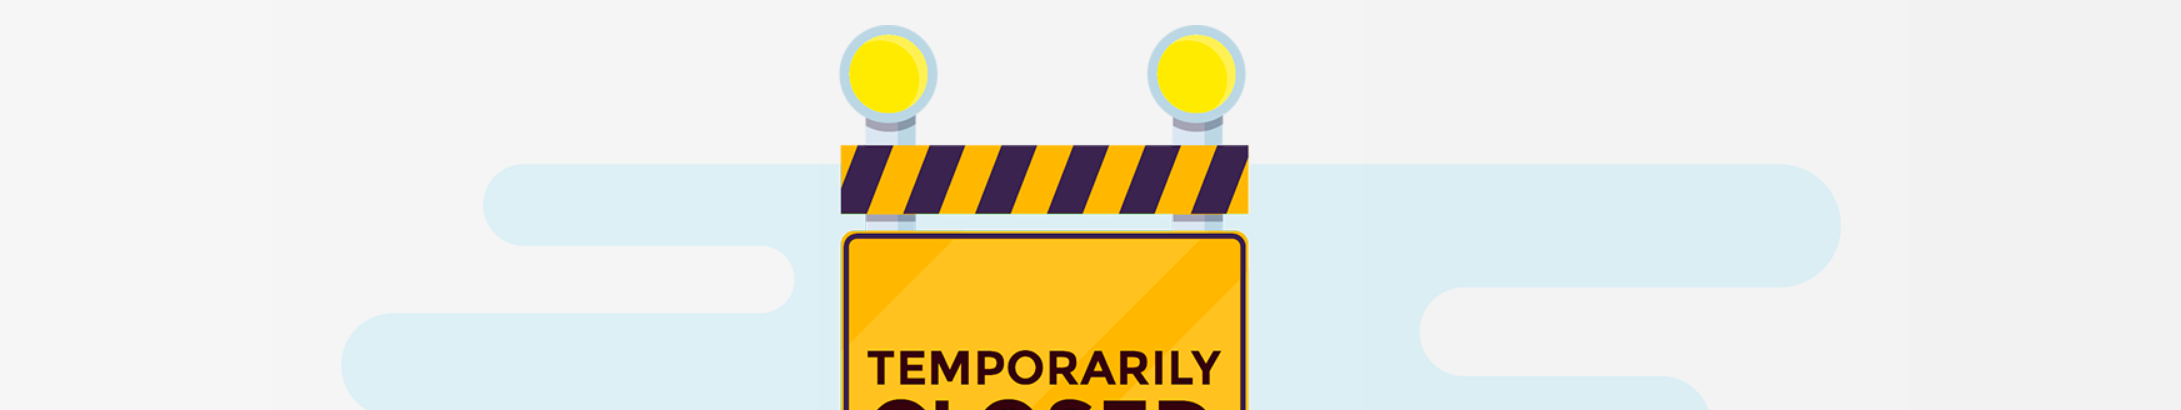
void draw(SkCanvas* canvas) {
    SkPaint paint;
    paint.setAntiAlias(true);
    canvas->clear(0xFFFFFFFF);
    {
        const SkColor colors[] = {0xFFF2F2F2, 0xFFF6F6F6};
        const float stops[] = {0, 1};
        const SkPoint ends[] = {{2181, 205}, {0, 205}};
        paint.setShader(SkGradientShader::MakeLinear(ends, colors, stops, 2, SkTileMode::kClamp));
        paint.setAlpha(255);
    }
    canvas->drawRect(SkRect::MakeXYWH(0, 0, 2181, 410), paint);
    canvas->drawImageRect(SkImages::DeferredFromEncodedData(SkData::MakeFromFileName("img1.png")), SkRect::MakeXYWH(341, 25, 1500, 385), SkSamplingOptions());
}
